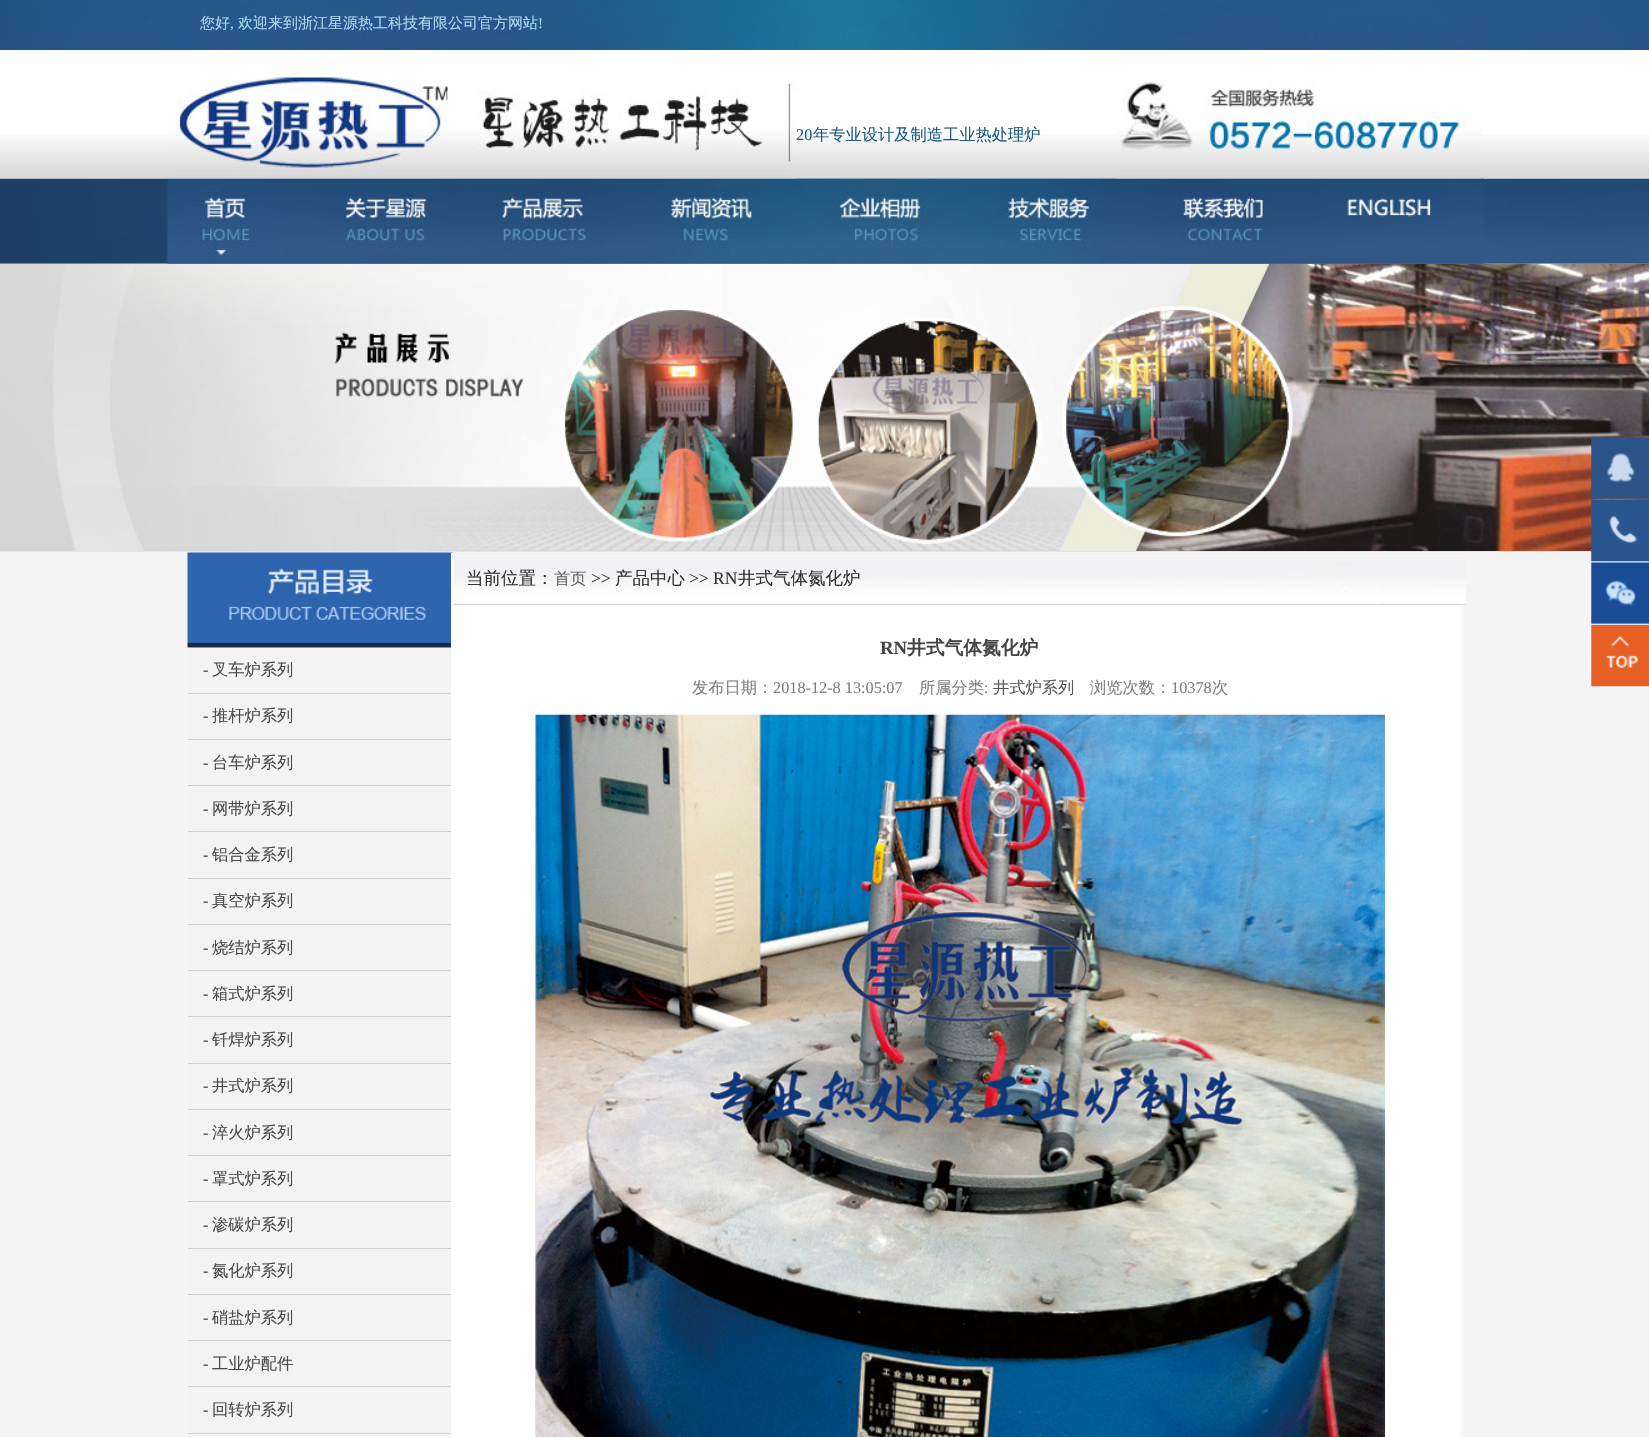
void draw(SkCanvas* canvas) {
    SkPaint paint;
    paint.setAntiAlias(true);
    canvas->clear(0xFFFFFFFF);
    canvas->drawImageRect(SkImages::DeferredFromEncodedData(SkData::MakeFromFileName("img1.png")), SkRect::MakeXYWH(0, 0, 1649, 50), SkSamplingOptions());
    SkFont font1(fontMgr->matchFamilyStyle("WenQuanYi Zen Hei", SkFontStyle(500, SkFontStyle::kNormal_Width, SkFontStyle::kUpright_Slant)), 15);
    font1.setSubpixel(true);
    paint.setColor(0xFFA9DAF0);
    canvas->drawString("您好", 200, 28, font1, paint);
    SkFont font2(fontMgr->matchFamilyStyle("Liberation Serif", SkFontStyle::Normal()), 15);
    font2.setSubpixel(true);
    canvas->drawString(",", 230, 28, font2, paint);
    canvas->drawString("欢迎来到浙江星源热工科技有限公司官方网站", 238, 28, font1, paint);
    canvas->drawString("!", 538, 28, font2, paint);
    canvas->drawImageRect(SkImages::DeferredFromEncodedData(SkData::MakeFromFileName("img2.png")), SkRect::MakeXYWH(0, 134, 1649, 45), SkSamplingOptions());
    canvas->drawImageRect(SkImages::DeferredFromEncodedData(SkData::MakeFromFileName("img5.png")), SkRect::MakeXYWH(0, 178, 1649, 86), SkSamplingOptions());
    canvas->drawImageRect(SkImages::DeferredFromEncodedData(SkData::MakeFromFileName("img3.png")), SkRect::MakeXYWH(168, 70, 629, 109), SkSamplingOptions());
    SkFont font3(fontMgr->matchFamilyStyle("Liberation Serif", SkFontStyle::Normal()), 16.25f);
    font3.setSubpixel(true);
    paint.setColor(0xFF1F5A81);
    canvas->drawString("20", 796, 140, font3, paint);
    SkFont font4(fontMgr->matchFamilyStyle("WenQuanYi Zen Hei", SkFontStyle(500, SkFontStyle::kNormal_Width, SkFontStyle::kUpright_Slant)), 16.25f);
    font4.setSubpixel(true);
    canvas->drawString("年专业设计及制造工业热处理炉", 813, 140, font4, paint);
    canvas->drawImageRect(SkImages::DeferredFromEncodedData(SkData::MakeFromFileName("img4.png")), SkRect::MakeXYWH(1116, 80, 366, 99), SkSamplingOptions());
    canvas->drawImageRect(SkImages::DeferredFromEncodedData(SkData::MakeFromFileName("img14.png")), SkRect::MakeXYWH(0, 263, 1649, 288), SkSamplingOptions());
    canvas->drawImageRect(SkImages::DeferredFromEncodedData(SkData::MakeFromFileName("img6.png")), SkRect::MakeXYWH(167, 178, 118, 86), SkSamplingOptions());
    canvas->drawImageRect(SkImages::DeferredFromEncodedData(SkData::MakeFromFileName("img7.png")), SkRect::MakeXYWH(285, 178, 183, 86), SkSamplingOptions());
    canvas->drawImageRect(SkImages::DeferredFromEncodedData(SkData::MakeFromFileName("img8.png")), SkRect::MakeXYWH(467, 178, 163, 86), SkSamplingOptions());
    canvas->drawImageRect(SkImages::DeferredFromEncodedData(SkData::MakeFromFileName("img9.png")), SkRect::MakeXYWH(630, 178, 165, 86), SkSamplingOptions());
    canvas->drawImageRect(SkImages::DeferredFromEncodedData(SkData::MakeFromFileName("img10.png")), SkRect::MakeXYWH(795, 178, 175, 86), SkSamplingOptions());
    canvas->drawImageRect(SkImages::DeferredFromEncodedData(SkData::MakeFromFileName("img11.png")), SkRect::MakeXYWH(970, 178, 159, 86), SkSamplingOptions());
    canvas->drawImageRect(SkImages::DeferredFromEncodedData(SkData::MakeFromFileName("img12.png")), SkRect::MakeXYWH(1128, 178, 177, 86), SkSamplingOptions());
    canvas->drawImageRect(SkImages::DeferredFromEncodedData(SkData::MakeFromFileName("img13.png")), SkRect::MakeXYWH(1305, 178, 179, 86), SkSamplingOptions());
    paint.setColor(0xFFF4F4F4);
    canvas->drawRect(SkRect::MakeXYWH(0, 552, 1649, 885), paint);
    paint.setColor(0xFFE3E3E3);
    canvas->drawRect(SkRect::MakeXYWH(0, 551, 1592, 1), paint);
    paint.setColor(0xFFFAFAFA);
    canvas->drawRect(SkRect::MakeXYWH(188, 605, 1275, 832), paint);
    paint.setColor(0xFFE1E1E1);
    canvas->drawRect(SkRect::MakeXYWH(450, 647, 1, 1), paint);
    canvas->drawImageRect(SkImages::DeferredFromEncodedData(SkData::MakeFromFileName("img17.png")), SkRect::MakeXYWH(187, 552, 266, 96), SkSamplingOptions());
    paint.setColor(0xFFD1D1D1);
    canvas->drawRect(SkRect::MakeXYWH(188, 693, 265, 1), paint);
    canvas->drawRect(SkRect::MakeXYWH(188, 739, 265, 1), paint);
    canvas->drawRect(SkRect::MakeXYWH(188, 785, 265, 1), paint);
    paint.setColor(0xFFF3F3F3);
    canvas->drawRect(SkRect::MakeXYWH(188, 786, 263, 92), paint);
    paint.setColor(0xFFD1D1D1);
    canvas->drawRect(SkRect::MakeXYWH(188, 831, 265, 1), paint);
    canvas->drawRect(SkRect::MakeXYWH(188, 878, 265, 1), paint);
    canvas->drawRect(SkRect::MakeXYWH(188, 924, 265, 1), paint);
    canvas->drawRect(SkRect::MakeXYWH(188, 970, 265, 1), paint);
    paint.setColor(0xFFF3F3F3);
    canvas->drawRect(SkRect::MakeXYWH(188, 971, 263, 92), paint);
    paint.setColor(0xFFD1D1D1);
    canvas->drawRect(SkRect::MakeXYWH(188, 1016, 265, 1), paint);
    canvas->drawRect(SkRect::MakeXYWH(188, 1063, 265, 1), paint);
    canvas->drawRect(SkRect::MakeXYWH(188, 1109, 265, 1), paint);
    canvas->drawRect(SkRect::MakeXYWH(188, 1155, 265, 1), paint);
    paint.setColor(0xFFF3F3F3);
    canvas->drawRect(SkRect::MakeXYWH(188, 1156, 263, 92), paint);
    paint.setColor(0xFFD1D1D1);
    canvas->drawRect(SkRect::MakeXYWH(188, 1201, 265, 1), paint);
    canvas->drawRect(SkRect::MakeXYWH(188, 1248, 265, 1), paint);
    canvas->drawRect(SkRect::MakeXYWH(188, 1294, 265, 1), paint);
    canvas->drawRect(SkRect::MakeXYWH(188, 1340, 265, 1), paint);
    paint.setColor(0xFFF3F3F3);
    canvas->drawRect(SkRect::MakeXYWH(188, 1341, 263, 92), paint);
    paint.setColor(0xFFD1D1D1);
    canvas->drawRect(SkRect::MakeXYWH(188, 1386, 265, 1), paint);
    canvas->drawRect(SkRect::MakeXYWH(188, 1433, 265, 1), paint);
    paint.setColor(0xFFF3F3F3);
    canvas->drawRect(SkRect::MakeXYWH(188, 1434, 265, 3), paint);
    paint.setColor(0xFFFFFFFF);
    canvas->drawRect(SkRect::MakeXYWH(451, 553, 1009, 884), paint);
    canvas->drawImageRect(SkImages::DeferredFromEncodedData(SkData::MakeFromFileName("img15.png")), SkRect::MakeXYWH(453, 553, 1014, 52), SkSamplingOptions());
    SkFont font5(fontMgr->matchFamilyStyle("WenQuanYi Zen Hei", SkFontStyle(500, SkFontStyle::kNormal_Width, SkFontStyle::kUpright_Slant)), 17.5f);
    font5.setSubpixel(true);
    paint.setColor(0xFF333333);
    canvas->drawString("当前位置：", 466, 584, font5, paint);
    paint.setColor(0xFF666666);
    canvas->drawString("首页", 554, 584, font4, paint);
    SkFont font6(fontMgr->matchFamilyStyle("Liberation Serif", SkFontStyle::Normal()), 17.5f);
    font6.setSubpixel(true);
    paint.setColor(0xFF333333);
    canvas->drawString(">>", 591, 584, font6, paint);
    canvas->drawString("产品中心", 615, 584, font5, paint);
    canvas->drawString(">> RN", 689, 584, font6, paint);
    canvas->drawString("井式气体氮化炉", 738, 584, font5, paint);
    SkFont font7(fontMgr->matchFamilyStyle("Liberation Serif", SkFontStyle::Bold()), 18.75f);
    font7.setSubpixel(true);
    paint.setColor(0xFF444444);
    canvas->drawString("RN", 880, 654, font7, paint);
    SkFont font8(fontMgr->matchFamilyStyle("WenQuanYi Zen Hei", SkFontStyle::Bold()), 18.75f);
    font8.setSubpixel(true);
    canvas->drawString("井式气体氮化炉", 907, 654, font8, paint);
    paint.setColor(0xFF808080);
    canvas->drawString("发布日期：", 692, 693, font4, paint);
    canvas->drawString("2018-12-8 13:05:07", 773, 693, font3, paint);
    canvas->drawString("所属分类", 919, 693, font4, paint);
    canvas->drawString(":", 984, 693, font3, paint);
    paint.setColor(0xFF585858);
    canvas->drawString("井式炉系列", 993, 693, font4, paint);
    paint.setColor(0xFF808080);
    canvas->drawString("浏览次数：", 1090, 693, font4, paint);
    canvas->drawString("10378", 1171, 693, font3, paint);
    canvas->drawString("次", 1212, 693, font4, paint);
    canvas->drawImageRect(SkImages::DeferredFromEncodedData(SkData::MakeFromFileName("img16.png")), SkRect::MakeXYWH(535, 713, 850, 724), SkSamplingOptions());
    paint.setColor(0xFFF3F3F3);
    canvas->drawRect(SkRect::MakeXYWH(188, 648, 263, 45), paint);
    paint.setColor(0xFF4A4A4A);
    canvas->drawString("-", 203, 675, font3, paint);
    canvas->drawString("叉车炉系列", 212, 675, font4, paint);
    paint.setColor(0xFFF3F3F3);
    canvas->drawRect(SkRect::MakeXYWH(188, 694, 263, 45), paint);
    paint.setColor(0xFF4A4A4A);
    canvas->drawString("-", 203, 721, font3, paint);
    canvas->drawString("推杆炉系列", 212, 721, font4, paint);
    paint.setColor(0xFFF3F3F3);
    canvas->drawRect(SkRect::MakeXYWH(188, 740, 263, 45), paint);
    paint.setColor(0xFF4A4A4A);
    canvas->drawString("-", 203, 768, font3, paint);
    canvas->drawString("台车炉系列", 212, 768, font4, paint);
    canvas->drawString("-", 203, 814, font3, paint);
    canvas->drawString("网带炉系列", 212, 814, font4, paint);
    canvas->drawString("-", 203, 860, font3, paint);
    canvas->drawString("铝合金系列", 212, 860, font4, paint);
    paint.setColor(0xFFF3F3F3);
    canvas->drawRect(SkRect::MakeXYWH(188, 879, 263, 45), paint);
    paint.setColor(0xFF4A4A4A);
    canvas->drawString("-", 203, 906, font3, paint);
    canvas->drawString("真空炉系列", 212, 906, font4, paint);
    paint.setColor(0xFFF3F3F3);
    canvas->drawRect(SkRect::MakeXYWH(188, 925, 263, 45), paint);
    paint.setColor(0xFF4A4A4A);
    canvas->drawString("-", 203, 953, font3, paint);
    canvas->drawString("烧结炉系列", 212, 953, font4, paint);
    canvas->drawString("-", 203, 999, font3, paint);
    canvas->drawString("箱式炉系列", 212, 999, font4, paint);
    canvas->drawString("-", 203, 1045, font3, paint);
    canvas->drawString("钎焊炉系列", 212, 1045, font4, paint);
    paint.setColor(0xFFF3F3F3);
    canvas->drawRect(SkRect::MakeXYWH(188, 1064, 263, 45), paint);
    paint.setColor(0xFF4A4A4A);
    canvas->drawString("-", 203, 1091, font3, paint);
    canvas->drawString("井式炉系列", 212, 1091, font4, paint);
    paint.setColor(0xFFF3F3F3);
    canvas->drawRect(SkRect::MakeXYWH(188, 1110, 263, 45), paint);
    paint.setColor(0xFF4A4A4A);
    canvas->drawString("-", 203, 1138, font3, paint);
    canvas->drawString("淬火炉系列", 212, 1138, font4, paint);
    canvas->drawString("-", 203, 1184, font3, paint);
    canvas->drawString("罩式炉系列", 212, 1184, font4, paint);
    canvas->drawString("-", 203, 1230, font3, paint);
    canvas->drawString("渗碳炉系列", 212, 1230, font4, paint);
    paint.setColor(0xFFF3F3F3);
    canvas->drawRect(SkRect::MakeXYWH(188, 1249, 263, 45), paint);
    paint.setColor(0xFF4A4A4A);
    canvas->drawString("-", 203, 1276, font3, paint);
    canvas->drawString("氮化炉系列", 212, 1276, font4, paint);
    paint.setColor(0xFFF3F3F3);
    canvas->drawRect(SkRect::MakeXYWH(188, 1295, 263, 45), paint);
    paint.setColor(0xFF4A4A4A);
    canvas->drawString("-", 203, 1323, font3, paint);
    canvas->drawString("硝盐炉系列", 212, 1323, font4, paint);
    canvas->drawString("-", 203, 1369, font3, paint);
    canvas->drawString("工业炉配件", 212, 1369, font4, paint);
    canvas->drawString("-", 203, 1415, font3, paint);
    canvas->drawString("回转炉系列", 212, 1415, font4, paint);
    canvas->drawImageRect(SkImages::DeferredFromEncodedData(SkData::MakeFromFileName("img18.png")), SkRect::MakeXYWH(1591, 437, 58, 63), SkSamplingOptions());
    canvas->drawImageRect(SkImages::DeferredFromEncodedData(SkData::MakeFromFileName("img19.png")), SkRect::MakeXYWH(1591, 500, 58, 62), SkSamplingOptions());
    canvas->drawImageRect(SkImages::DeferredFromEncodedData(SkData::MakeFromFileName("img20.png")), SkRect::MakeXYWH(1591, 562, 58, 63), SkSamplingOptions());
    canvas->drawImageRect(SkImages::DeferredFromEncodedData(SkData::MakeFromFileName("img21.png")), SkRect::MakeXYWH(1591, 625, 58, 62), SkSamplingOptions());
}
